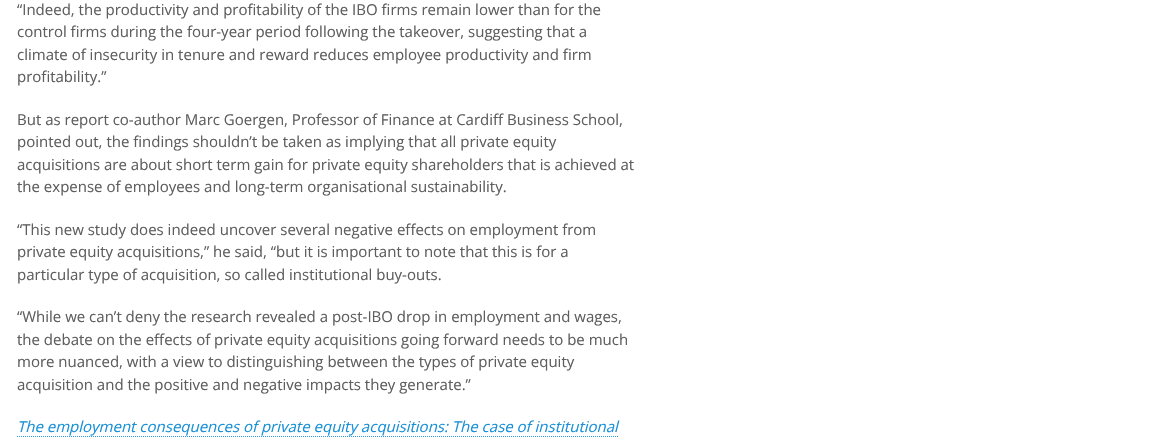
void draw(SkCanvas* canvas) {
    SkPaint paint;
    paint.setAntiAlias(true);
    canvas->clear(0xFFFFFFFF);
    SkFont font1(fontMgr->matchFamilyStyle("Open Sans", SkFontStyle::Normal()), 15);
    font1.setSubpixel(true);
    paint.setColor(0xFF5E5E5E);
    canvas->drawString("“Indeed, the productivity and profitability of the IBO firms remain lower than for the", 17, 15, font1, paint);
    canvas->drawString("control firms during the four-year period following the takeover, suggesting that a", 17, 37, font1, paint);
    canvas->drawString("climate of insecurity in tenure and reward reduces employee productivity and firm", 17, 60, font1, paint);
    canvas->drawString("profitability.”", 17, 82, font1, paint);
    canvas->drawString("But as report co-author Marc Goergen, Professor of Finance at Cardiff Business School,", 17, 125, font1, paint);
    canvas->drawString("pointed out, the findings shouldn’t be taken as implying that all private equity", 17, 147, font1, paint);
    canvas->drawString("acquisitions are about short term gain for private equity shareholders that is achieved at", 17, 170, font1, paint);
    canvas->drawString("the expense of employees and long-term organisational sustainability.", 17, 192, font1, paint);
    canvas->drawString("“This new study does indeed uncover several negative effects on employment from", 17, 235, font1, paint);
    canvas->drawString("private equity acquisitions,” he said, “but it is important to note that this is for a", 17, 257, font1, paint);
    canvas->drawString("particular type of acquisition, so called institutional buy-outs.", 17, 280, font1, paint);
    canvas->drawString("“While we can’t deny the research revealed a post-IBO drop in employment and wages,", 17, 322, font1, paint);
    canvas->drawString("the debate on the effects of private equity acquisitions going forward needs to be much", 17, 345, font1, paint);
    canvas->drawString("more nuanced, with a view to distinguishing between the types of private equity", 17, 367, font1, paint);
    canvas->drawString("acquisition and the positive and negative impacts they generate.”", 17, 390, font1, paint);
    SkFont font2(fontMgr->matchFamilyStyle("Open Sans", SkFontStyle::Italic()), 15);
    font2.setSubpixel(true);
    paint.setColor(0xFF1790D7);
    canvas->drawString("The employment consequences of private equity acquisitions: The case of institutional", 17, 432, font2, paint);
    paint.setStyle(SkPaint::kStroke_Style);
    paint.setStrokeWidth(1);
    paint.setColor(0xFF2D9BDB);
    paint.setPathEffect(SkDashPathEffect::Make({{1, 1}}, 0));
    canvas->drawPath(SkPathBuilder().moveTo(17, 436.5f).lineTo(618, 436.5f).detach(), paint);
    paint.setPathEffect(nullptr);
}
